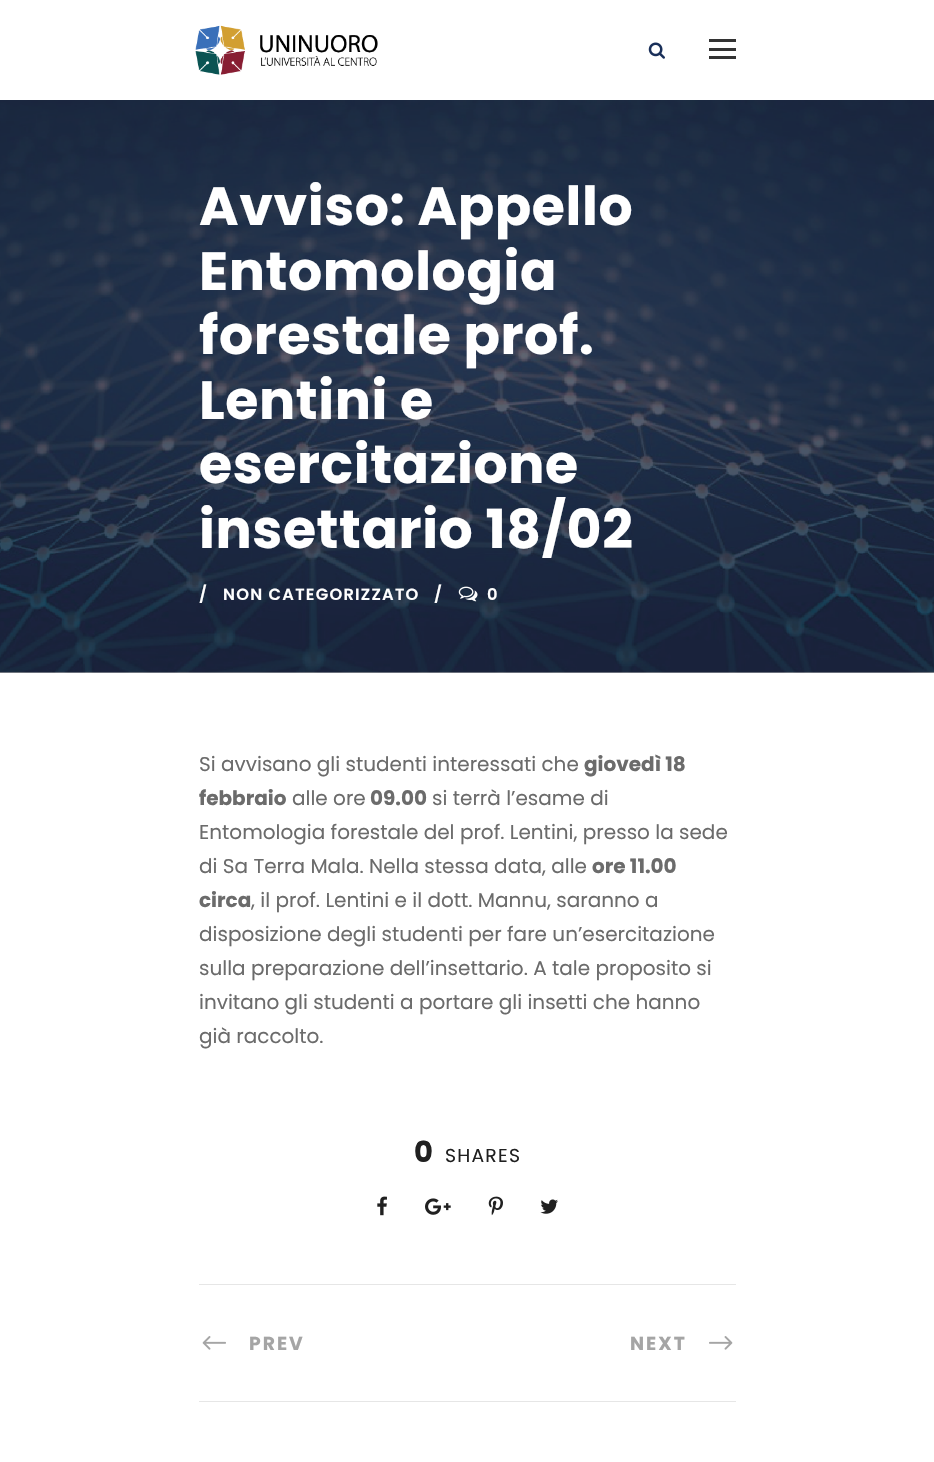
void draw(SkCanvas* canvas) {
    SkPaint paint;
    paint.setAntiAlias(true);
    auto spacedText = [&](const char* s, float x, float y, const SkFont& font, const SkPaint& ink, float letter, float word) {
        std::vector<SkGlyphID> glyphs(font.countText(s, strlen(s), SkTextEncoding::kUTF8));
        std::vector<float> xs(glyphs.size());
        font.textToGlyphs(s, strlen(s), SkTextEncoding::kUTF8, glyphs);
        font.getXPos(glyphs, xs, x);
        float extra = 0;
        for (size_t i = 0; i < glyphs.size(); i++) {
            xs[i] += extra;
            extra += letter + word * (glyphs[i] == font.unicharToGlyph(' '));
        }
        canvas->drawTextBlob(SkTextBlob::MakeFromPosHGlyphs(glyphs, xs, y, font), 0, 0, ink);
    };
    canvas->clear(0xFFFFFFFF);
    paint.setColor(0xFFBFBFBF);
    canvas->drawRect(SkRect::MakeXYWH(0, 672, 934, 1), paint);
    canvas->drawImageRect(SkImages::DeferredFromEncodedData(SkData::MakeFromFileName("img1.png")), SkRect::MakeXYWH(195, 25, 183, 50), SkSamplingOptions());
    canvas->drawImageRect(SkImages::DeferredFromEncodedData(SkData::MakeFromFileName("img2.png")), SkRect::MakeXYWH(648, 42, 17, 17), SkSamplingOptions());
    paint.setColor(0xFF333333);
    canvas->drawRect(SkRect::MakeXYWH(709, 39, 27, 3), paint);
    canvas->drawRect(SkRect::MakeXYWH(709, 48, 27, 3), paint);
    canvas->drawRect(SkRect::MakeXYWH(709, 56, 27, 3), paint);
    canvas->drawImageRect(SkImages::DeferredFromEncodedData(SkData::MakeFromFileName("img3.png")), SkRect::MakeXYWH(0, 100, 934, 573), SkSamplingOptions());
    SkFont font1(fontMgr->matchFamilyStyle("Poppins", SkFontStyle::Bold()), 53.75f);
    font1.setSubpixel(true);
    paint.setColor(0xFFFFFFFF);
    spacedText("Avviso: Appello", 199, 225, font1, paint, 0.6f, 0);
    spacedText("Entomologia", 199, 290, font1, paint, 0.6f, 0);
    spacedText("forestale prof.", 199, 354, font1, paint, 0.6f, 0);
    spacedText("Lentini e", 199, 419, font1, paint, 0.6f, 0);
    spacedText("esercitazione", 199, 483, font1, paint, 0.6f, 0);
    spacedText("insettario 18/02", 199, 548, font1, paint, 0.6f, 0);
    SkFont font2(fontMgr->matchFamilyStyle("Poppins", SkFontStyle(600, SkFontStyle::kNormal_Width, SkFontStyle::kUpright_Slant)), 16.25f);
    font2.setSubpixel(true);
    spacedText("/", 199, 600, font2, paint, 1.25f, 0);
    spacedText("NON CATEGORIZZATO", 223, 600, font2, paint, 1.25f, 0);
    spacedText("/", 434, 600, font2, paint, 1.25f, 0);
    canvas->drawImageRect(SkImages::DeferredFromEncodedData(SkData::MakeFromFileName("img4.png")), SkRect::MakeXYWH(458, 586, 20, 16), SkSamplingOptions());
    spacedText("0", 487, 600, font2, paint, 1.25f, 0);
    SkFont font3(fontMgr->matchFamilyStyle("Poppins", SkFontStyle::Normal()), 20);
    font3.setSubpixel(true);
    paint.setColor(0xFF6B6B6B);
    canvas->drawString("Si avvisano gli studenti interessati che", 199, 771, font3, paint);
    SkFont font4(fontMgr->matchFamilyStyle("Poppins", SkFontStyle::Bold()), 20);
    font4.setSubpixel(true);
    canvas->drawString("giovedì 18", 584, 771, font4, paint);
    canvas->drawString("febbraio", 199, 805, font4, paint);
    canvas->drawString("alle ore", 292, 805, font3, paint);
    canvas->drawString("09.00", 370, 805, font4, paint);
    canvas->drawString("si terrà l’esame di", 432, 805, font3, paint);
    canvas->drawString("Entomologia forestale del prof. Lentini, presso la sede", 199, 839, font3, paint);
    canvas->drawString("di Sa Terra Mala. Nella stessa data, alle", 199, 873, font3, paint);
    canvas->drawString("ore 11.00", 592, 873, font4, paint);
    canvas->drawString("circa", 199, 907, font4, paint);
    canvas->drawString(", il prof. Lentini e il dott. Mannu, saranno a", 251, 907, font3, paint);
    canvas->drawString("disposizione degli studenti per fare un’esercitazione", 199, 941, font3, paint);
    canvas->drawString("sulla preparazione dell’insettario. A tale proposito si", 199, 975, font3, paint);
    canvas->drawString("invitano gli studenti a portare gli insetti che hanno", 199, 1009, font3, paint);
    canvas->drawString("già raccolto.", 199, 1043, font3, paint);
    SkFont font5(fontMgr->matchFamilyStyle("Poppins", SkFontStyle::Bold()), 29);
    font5.setSubpixel(true);
    paint.setColor(0xFF202020);
    canvas->drawString("0", 414, 1162, font5, paint);
    SkFont font6(fontMgr->matchFamilyStyle("Poppins", SkFontStyle::Normal()), 18.75f);
    font6.setSubpixel(true);
    spacedText("SHARES", 445, 1162, font6, paint, 1.25f, 0);
    canvas->drawImageRect(SkImages::DeferredFromEncodedData(SkData::MakeFromFileName("img5.png")), SkRect::MakeXYWH(377, 1196, 10, 20), SkSamplingOptions());
    canvas->drawImageRect(SkImages::DeferredFromEncodedData(SkData::MakeFromFileName("img6.png")), SkRect::MakeXYWH(425, 1198, 26, 17), SkSamplingOptions());
    canvas->drawImageRect(SkImages::DeferredFromEncodedData(SkData::MakeFromFileName("img7.png")), SkRect::MakeXYWH(488, 1196, 15, 20), SkSamplingOptions());
    canvas->drawImageRect(SkImages::DeferredFromEncodedData(SkData::MakeFromFileName("img8.png")), SkRect::MakeXYWH(540, 1199, 18, 15), SkSamplingOptions());
    paint.setColor(0xFFE6E6E6);
    canvas->drawRect(SkRect::MakeXYWH(199, 1284, 537, 1), paint);
    canvas->drawRect(SkRect::MakeXYWH(199, 1401, 537, 1), paint);
    canvas->drawImageRect(SkImages::DeferredFromEncodedData(SkData::MakeFromFileName("img9.png")), SkRect::MakeXYWH(202, 1336, 24, 14), SkSamplingOptions());
    SkFont font7(fontMgr->matchFamilyStyle("Poppins", SkFontStyle::Bold()), 18.75f);
    font7.setSubpixel(true);
    paint.setColor(0xFFA5A5A5);
    spacedText("PREV", 249, 1350, font7, paint, 2, 0);
    spacedText("NEXT", 630, 1350, font7, paint, 2, 0);
    canvas->drawImageRect(SkImages::DeferredFromEncodedData(SkData::MakeFromFileName("img10.png")), SkRect::MakeXYWH(709, 1336, 24, 14), SkSamplingOptions());
}
